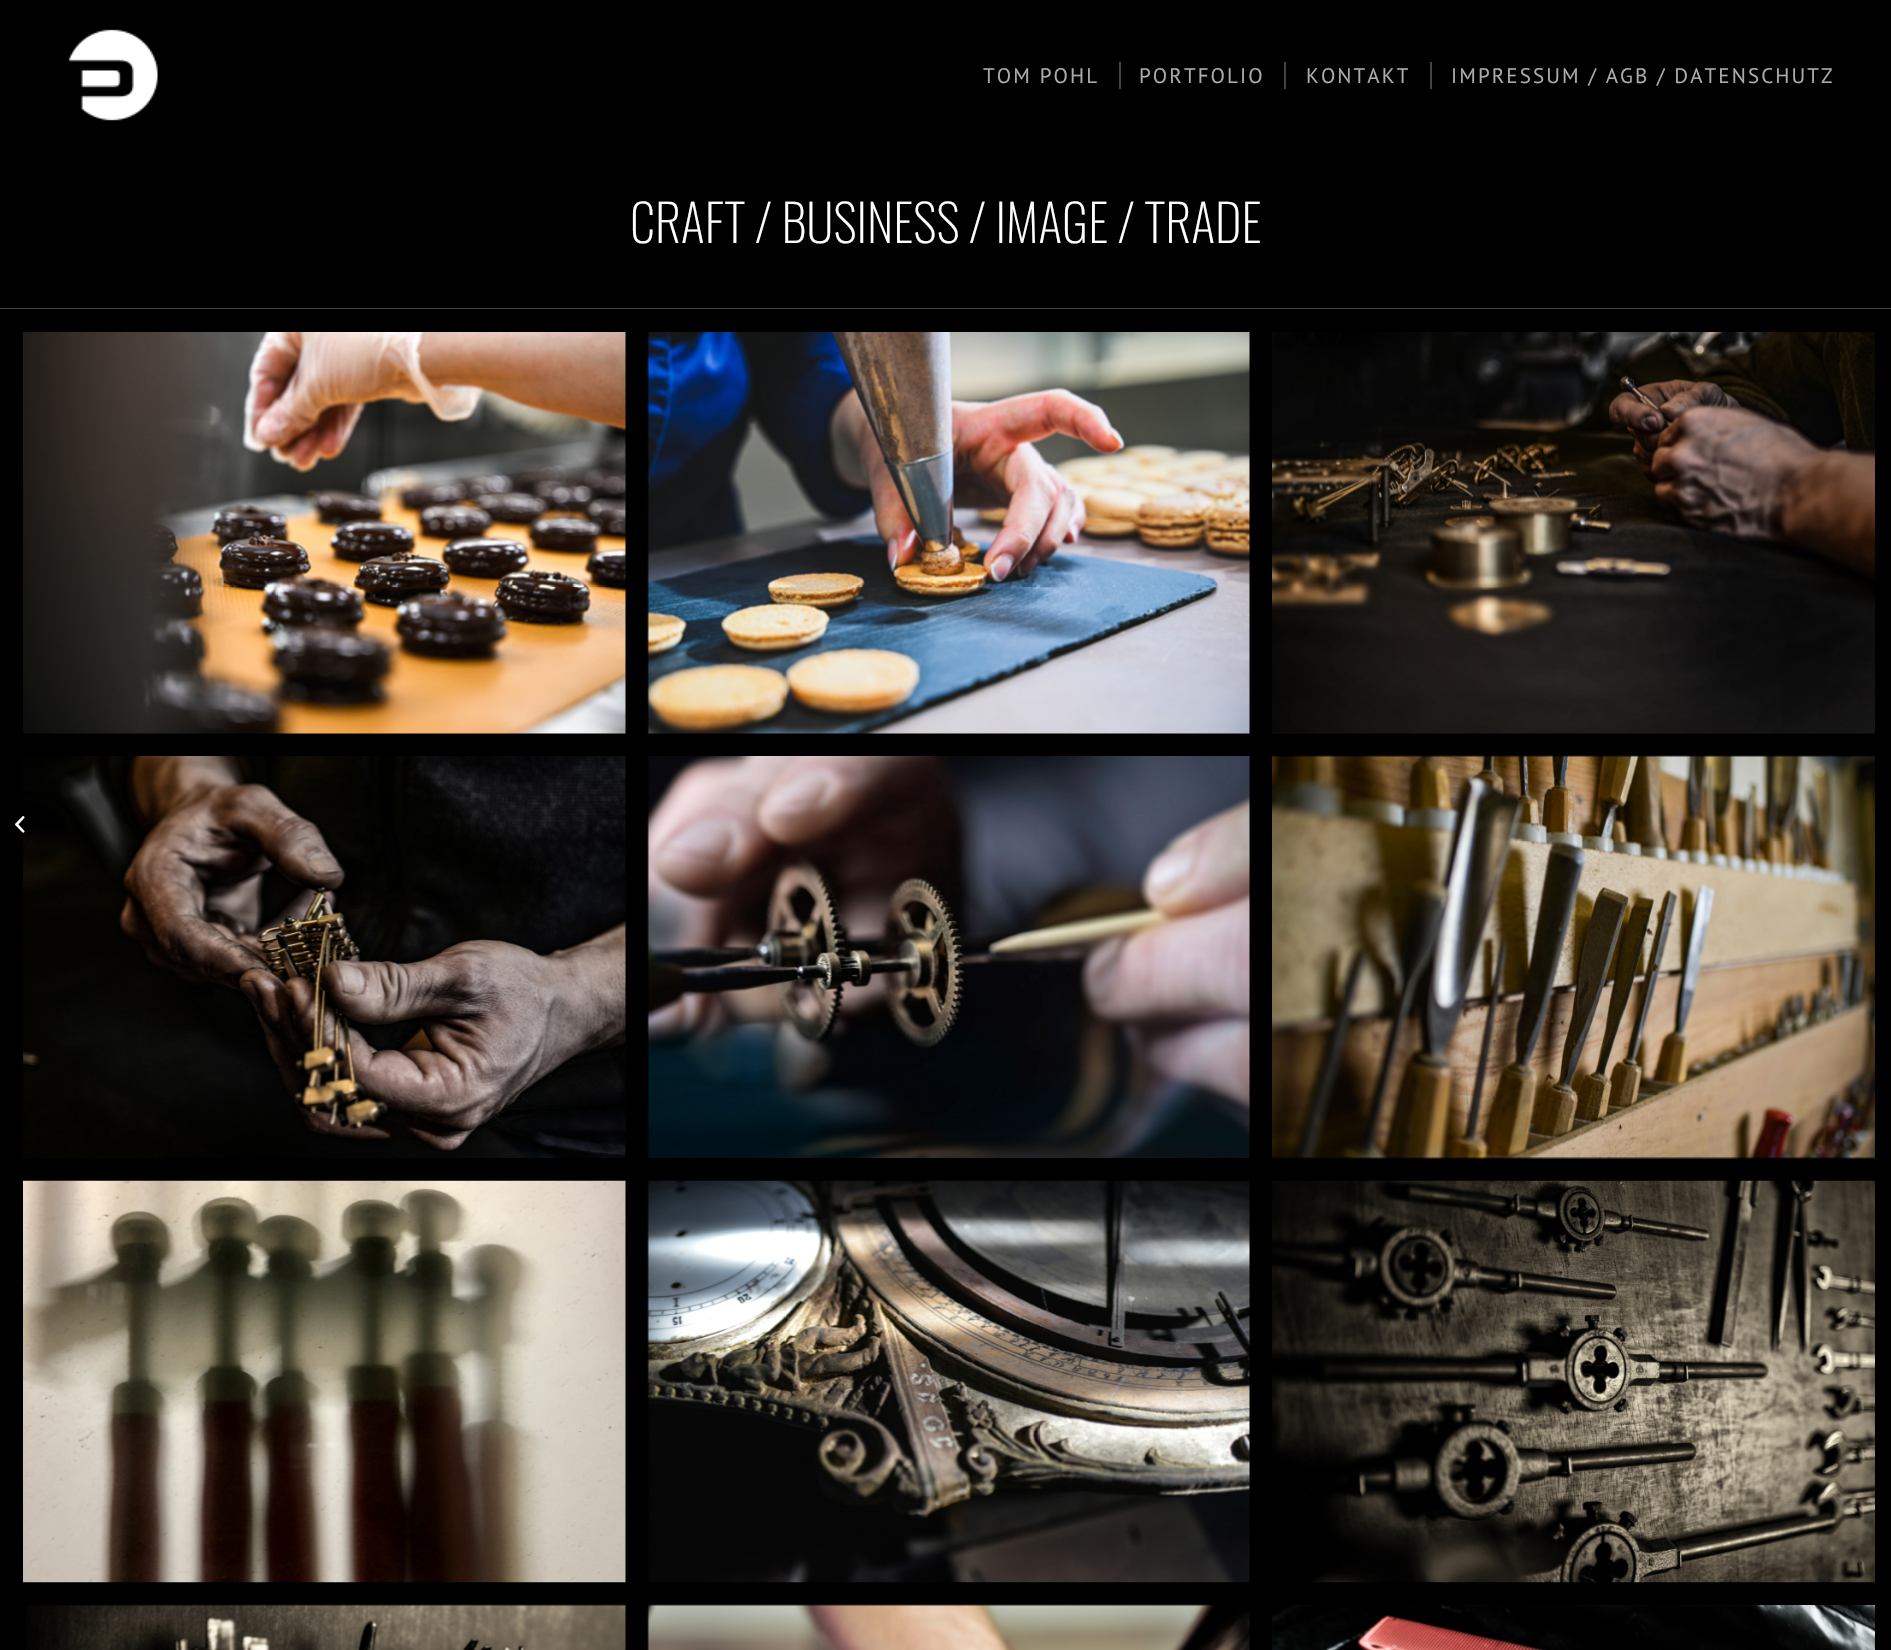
void draw(SkCanvas* canvas) {
    SkPaint paint;
    paint.setAntiAlias(true);
    auto spacedText = [&](const char* s, float x, float y, const SkFont& font, const SkPaint& ink, float letter, float word) {
        std::vector<SkGlyphID> glyphs(font.countText(s, strlen(s), SkTextEncoding::kUTF8));
        std::vector<float> xs(glyphs.size());
        font.textToGlyphs(s, strlen(s), SkTextEncoding::kUTF8, glyphs);
        font.getXPos(glyphs, xs, x);
        float extra = 0;
        for (size_t i = 0; i < glyphs.size(); i++) {
            xs[i] += extra;
            extra += letter + word * (glyphs[i] == font.unicharToGlyph(' '));
        }
        canvas->drawTextBlob(SkTextBlob::MakeFromPosHGlyphs(glyphs, xs, y, font), 0, 0, ink);
    };
    canvas->clear(0xFF000000);
    canvas->drawImageRect(SkImages::DeferredFromEncodedData(SkData::MakeFromFileName("img1.png")), SkRect::MakeXYWH(68, 29, 90, 92), SkSamplingOptions());
    SkFont font1(fontMgr->matchFamilyStyle("PT Sans", SkFontStyle::Normal()), 21);
    font1.setSubpixel(true);
    paint.setColor(0xFFABABAB);
    spacedText("TOM POHL", 983, 83, font1, paint, 2.1f, 0);
    spacedText("PORTFOLIO", 1139, 83, font1, paint, 2.1f, 0);
    paint.setColor(0xFF444444);
    canvas->drawRect(SkRect::MakeXYWH(1119, 62, 2, 27), paint);
    paint.setColor(0xFFABABAB);
    spacedText("KONTAKT", 1306, 83, font1, paint, 2.1f, 0);
    paint.setColor(0xFF444444);
    canvas->drawRect(SkRect::MakeXYWH(1284, 62, 2, 27), paint);
    paint.setColor(0xFFABABAB);
    spacedText("IMPRESSUM / AGB / DATENSCHUTZ", 1451, 83, font1, paint, 2.1f, 0);
    paint.setColor(0xFF444444);
    canvas->drawRect(SkRect::MakeXYWH(1430, 62, 2, 27), paint);
    SkFont font2(fontMgr->matchFamilyStyle("Oswald", SkFontStyle(200, SkFontStyle::kNormal_Width, SkFontStyle::kUpright_Slant)), 51);
    font2.setSubpixel(true);
    paint.setColor(0xFFFFFFFF);
    canvas->drawString("CRAFT / BUSINESS / IMAGE / TRADE", 630, 243, font2, paint);
    paint.setColor(0xFF444444);
    canvas->drawRect(SkRect::MakeXYWH(0, 308, 1891, 1), paint);
    canvas->drawImageRect(SkImages::DeferredFromEncodedData(SkData::MakeFromFileName("img2.png")), SkRect::MakeXYWH(23, 332, 603, 402), SkSamplingOptions());
    canvas->drawImageRect(SkImages::DeferredFromEncodedData(SkData::MakeFromFileName("img3.png")), SkRect::MakeXYWH(647, 332, 603, 402), SkSamplingOptions());
    canvas->drawImageRect(SkImages::DeferredFromEncodedData(SkData::MakeFromFileName("img4.png")), SkRect::MakeXYWH(1272, 332, 603, 402), SkSamplingOptions());
    canvas->drawImageRect(SkImages::DeferredFromEncodedData(SkData::MakeFromFileName("img5.png")), SkRect::MakeXYWH(23, 756, 603, 402), SkSamplingOptions());
    canvas->drawImageRect(SkImages::DeferredFromEncodedData(SkData::MakeFromFileName("img6.png")), SkRect::MakeXYWH(647, 756, 603, 402), SkSamplingOptions());
    canvas->drawImageRect(SkImages::DeferredFromEncodedData(SkData::MakeFromFileName("img7.png")), SkRect::MakeXYWH(1272, 755, 603, 404), SkSamplingOptions());
    canvas->drawImageRect(SkImages::DeferredFromEncodedData(SkData::MakeFromFileName("img8.png")), SkRect::MakeXYWH(23, 1180, 603, 403), SkSamplingOptions());
    canvas->drawImageRect(SkImages::DeferredFromEncodedData(SkData::MakeFromFileName("img9.png")), SkRect::MakeXYWH(647, 1180, 603, 403), SkSamplingOptions());
    canvas->drawImageRect(SkImages::DeferredFromEncodedData(SkData::MakeFromFileName("img10.png")), SkRect::MakeXYWH(1272, 1180, 603, 403), SkSamplingOptions());
    canvas->drawImageRect(SkImages::DeferredFromEncodedData(SkData::MakeFromFileName("img11.png")), SkRect::MakeXYWH(26, 1604, 600, 46), SkSamplingOptions());
    canvas->drawImageRect(SkImages::DeferredFromEncodedData(SkData::MakeFromFileName("img12.png")), SkRect::MakeXYWH(647, 1604, 603, 46), SkSamplingOptions());
    canvas->drawImageRect(SkImages::DeferredFromEncodedData(SkData::MakeFromFileName("img13.png")), SkRect::MakeXYWH(1272, 1605, 603, 45), SkSamplingOptions());
    canvas->drawImageRect(SkImages::DeferredFromEncodedData(SkData::MakeFromFileName("img14.png")), SkRect::MakeXYWH(15, 816, 10, 17), SkSamplingOptions());
}
